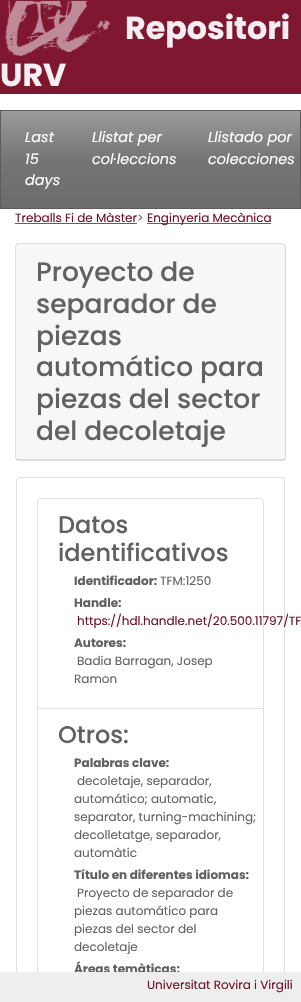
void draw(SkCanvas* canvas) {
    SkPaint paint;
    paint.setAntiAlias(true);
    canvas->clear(0xFFFFFFFF);
    paint.setColor(0xFF7F1730);
    canvas->drawRect(SkRect::MakeXYWH(0, 0, 301, 94), paint);
    canvas->drawImageRect(SkImages::DeferredFromEncodedData(SkData::MakeFromFileName("img1.png")), SkRect::MakeXYWH(5, 0, 105, 56), SkSamplingOptions());
    SkFont font1(fontMgr->matchFamilyStyle("Poppins", SkFontStyle::Bold()), 31.75f);
    font1.setSubpixel(true);
    paint.setColor(0xFFF6EEF0);
    canvas->drawString("Repositori", 125, 39, font1, paint);
    canvas->drawString("URV", 0, 86, font1, paint);
    {
        const SkColor colors[] = {0xFF9B9B9B, 0xFF757575, 0xFF6B6B6B};
        const float stops[] = {0, 0.5f, 1};
        const SkPoint ends[] = {{151, 111}, {151, 208}};
        paint.setShader(SkGradientShader::MakeLinear(ends, colors, stops, 3, SkTileMode::kClamp));
        paint.setAlpha(255);
    }
    canvas->drawRect(SkRect::MakeXYWH(1, 111, 299, 97), paint);
    paint.setStyle(SkPaint::kStroke_Style);
    paint.setStrokeWidth(1);
    paint.setShader(nullptr);
    paint.setColor(0xFF5C5C5C);
    canvas->drawRect(SkRect::MakeXYWH(0.5f, 110.5f, 300, 98), paint);
    SkFont font2(fontMgr->matchFamilyStyle("Poppins", SkFontStyle::Italic()), 14.5f);
    font2.setSubpixel(true);
    paint.setStyle(SkPaint::kFill_Style);
    paint.setColor(0xFFFFFFFF);
    canvas->drawString("Last", 25, 142, font2, paint);
    canvas->drawString("15", 25, 164, font2, paint);
    canvas->drawString("days", 25, 185, font2, paint);
    canvas->drawString("Llistat per", 92, 142, font2, paint);
    canvas->drawString("col·leccions", 92, 164, font2, paint);
    canvas->drawString("Llistado por", 208, 142, font2, paint);
    canvas->drawString("colecciones", 208, 164, font2, paint);
    SkFont font3(fontMgr->matchFamilyStyle("Poppins", SkFontStyle::Normal()), 12);
    font3.setSubpixel(true);
    paint.setColor(0xFF6B1229);
    canvas->drawString("Treballs Fi de Màster", 15, 222, font3, paint);
    paint.setColor(0xFF616161);
    canvas->drawRect(SkRect::MakeXYWH(15, 223, 122, 1), paint);
    canvas->drawString(">", 137, 222, font3, paint);
    canvas->drawRect(SkRect::MakeXYWH(147, 223, 124, 1), paint);
    paint.setColor(0xFF6B1229);
    canvas->drawString("Enginyeria Mecànica", 147, 222, font3, paint);
    paint.setStyle(SkPaint::kStroke_Style);
    paint.setColor(0xFFDFDFDF);
    canvas->drawRoundRect(SkRect::MakeXYWH(15.5f, 243.5f, 270, 217), 3.5f, 3.5f, paint);
    paint.setStyle(SkPaint::kFill_Style);
    paint.setColor(0x08000000);
    canvas->drawRect(SkRect::MakeXYWH(16, 244, 269, 216), paint);
    paint.setColor(0x1F000000);
    canvas->drawRect(SkRect::MakeXYWH(16, 459, 269, 1), paint);
    SkFont font4(fontMgr->matchFamilyStyle("Poppins", SkFontStyle(500, SkFontStyle::kNormal_Width, SkFontStyle::kUpright_Slant)), 26.5f);
    font4.setSubpixel(true);
    paint.setColor(0xFF616161);
    canvas->drawString("Proyecto de", 36, 281, font4, paint);
    canvas->drawString("separador de", 36, 313, font4, paint);
    canvas->drawString("piezas", 36, 345, font4, paint);
    canvas->drawString("automático para", 36, 376, font4, paint);
    canvas->drawString("piezas del sector", 36, 408, font4, paint);
    canvas->drawString("del decoletaje", 36, 440, font4, paint);
    paint.setStyle(SkPaint::kStroke_Style);
    paint.setColor(0xFFDFDFDF);
    canvas->drawRoundRect(SkRect::MakeXYWH(16.5f, 477.5f, 268, 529), 3.5f, 3.5f, paint);
    canvas->drawPath(SkPathBuilder().moveTo(41, 498.5f).lineTo(260, 498.5f).cubicTo(262, 498.5f, 263.5f, 500, 263.5f, 502).lineTo(263.5f, 708.5f).lineTo(37.5f, 708.5f).lineTo(37.5f, 502).cubicTo(37.5f, 500, 39, 498.5f, 41, 498.5f).close().detach(), paint);
    SkFont font5(fontMgr->matchFamilyStyle("Poppins", SkFontStyle(500, SkFontStyle::kNormal_Width, SkFontStyle::kUpright_Slant)), 24);
    font5.setSubpixel(true);
    paint.setStyle(SkPaint::kFill_Style);
    paint.setColor(0xFF616161);
    canvas->drawString("Datos", 58, 533, font5, paint);
    canvas->drawString("identificativos", 58, 561, font5, paint);
    SkFont font6(fontMgr->matchFamilyStyle("Poppins", SkFontStyle::Bold()), 12);
    font6.setSubpixel(true);
    canvas->drawString("Identificador:", 74, 585, font6, paint);
    canvas->drawString("TFM:1250", 160, 585, font3, paint);
    canvas->drawString("Handle:", 74, 607, font6, paint);
    paint.setColor(0xFF6B1229);
    canvas->drawString("https://hdl.handle.net/20.500.11797/TF", 77, 625, font3, paint);
    paint.setColor(0xFF616161);
    canvas->drawString("Autores:", 74, 647, font6, paint);
    canvas->drawString("Badia Barragan, Josep", 77, 665, font3, paint);
    canvas->drawString("Ramon", 74, 683, font3, paint);
    paint.setColor(0xFFDFDFDF);
    canvas->drawPath(SkPathBuilder(SkPathFillType::kEvenOdd).moveTo(37, 709).lineTo(264, 709).lineTo(264, 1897).cubicTo(264, 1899, 262, 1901, 260, 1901).lineTo(41, 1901).cubicTo(39, 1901, 37, 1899, 37, 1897).close().moveTo(38, 709).lineTo(263, 709).lineTo(263, 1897).cubicTo(263, 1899, 262, 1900, 260, 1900).lineTo(41, 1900).cubicTo(39, 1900, 38, 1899, 38, 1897).close().detach(), paint);
    paint.setColor(0xFF616161);
    canvas->drawString("Otros:", 58, 743, font5, paint);
    canvas->drawString("Palabras clave:", 74, 767, font6, paint);
    canvas->drawString("decoletaje, separador,", 77, 785, font3, paint);
    canvas->drawString("automático; automatic,", 74, 803, font3, paint);
    canvas->drawString("separator, turning-machining;", 74, 821, font3, paint);
    canvas->drawString("decolletatge, separador,", 74, 839, font3, paint);
    canvas->drawString("automàtic", 74, 857, font3, paint);
    canvas->drawString("Título en diferentes idiomas:", 74, 879, font6, paint);
    canvas->drawString("Proyecto de separador de", 77, 897, font3, paint);
    canvas->drawString("piezas automático para", 74, 915, font3, paint);
    canvas->drawString("piezas del sector del", 74, 933, font3, paint);
    canvas->drawString("decoletaje", 74, 951, font3, paint);
    canvas->drawString("Áreas temàticas:", 74, 973, font6, paint);
    paint.setColor(0xFFEEEEEE);
    canvas->drawRect(SkRect::MakeXYWH(0, 972, 301, 30), paint);
    paint.setColor(0xFF6B1229);
    canvas->drawString("Universitat Rovira i Virgili", 147, 989, font3, paint);
}
